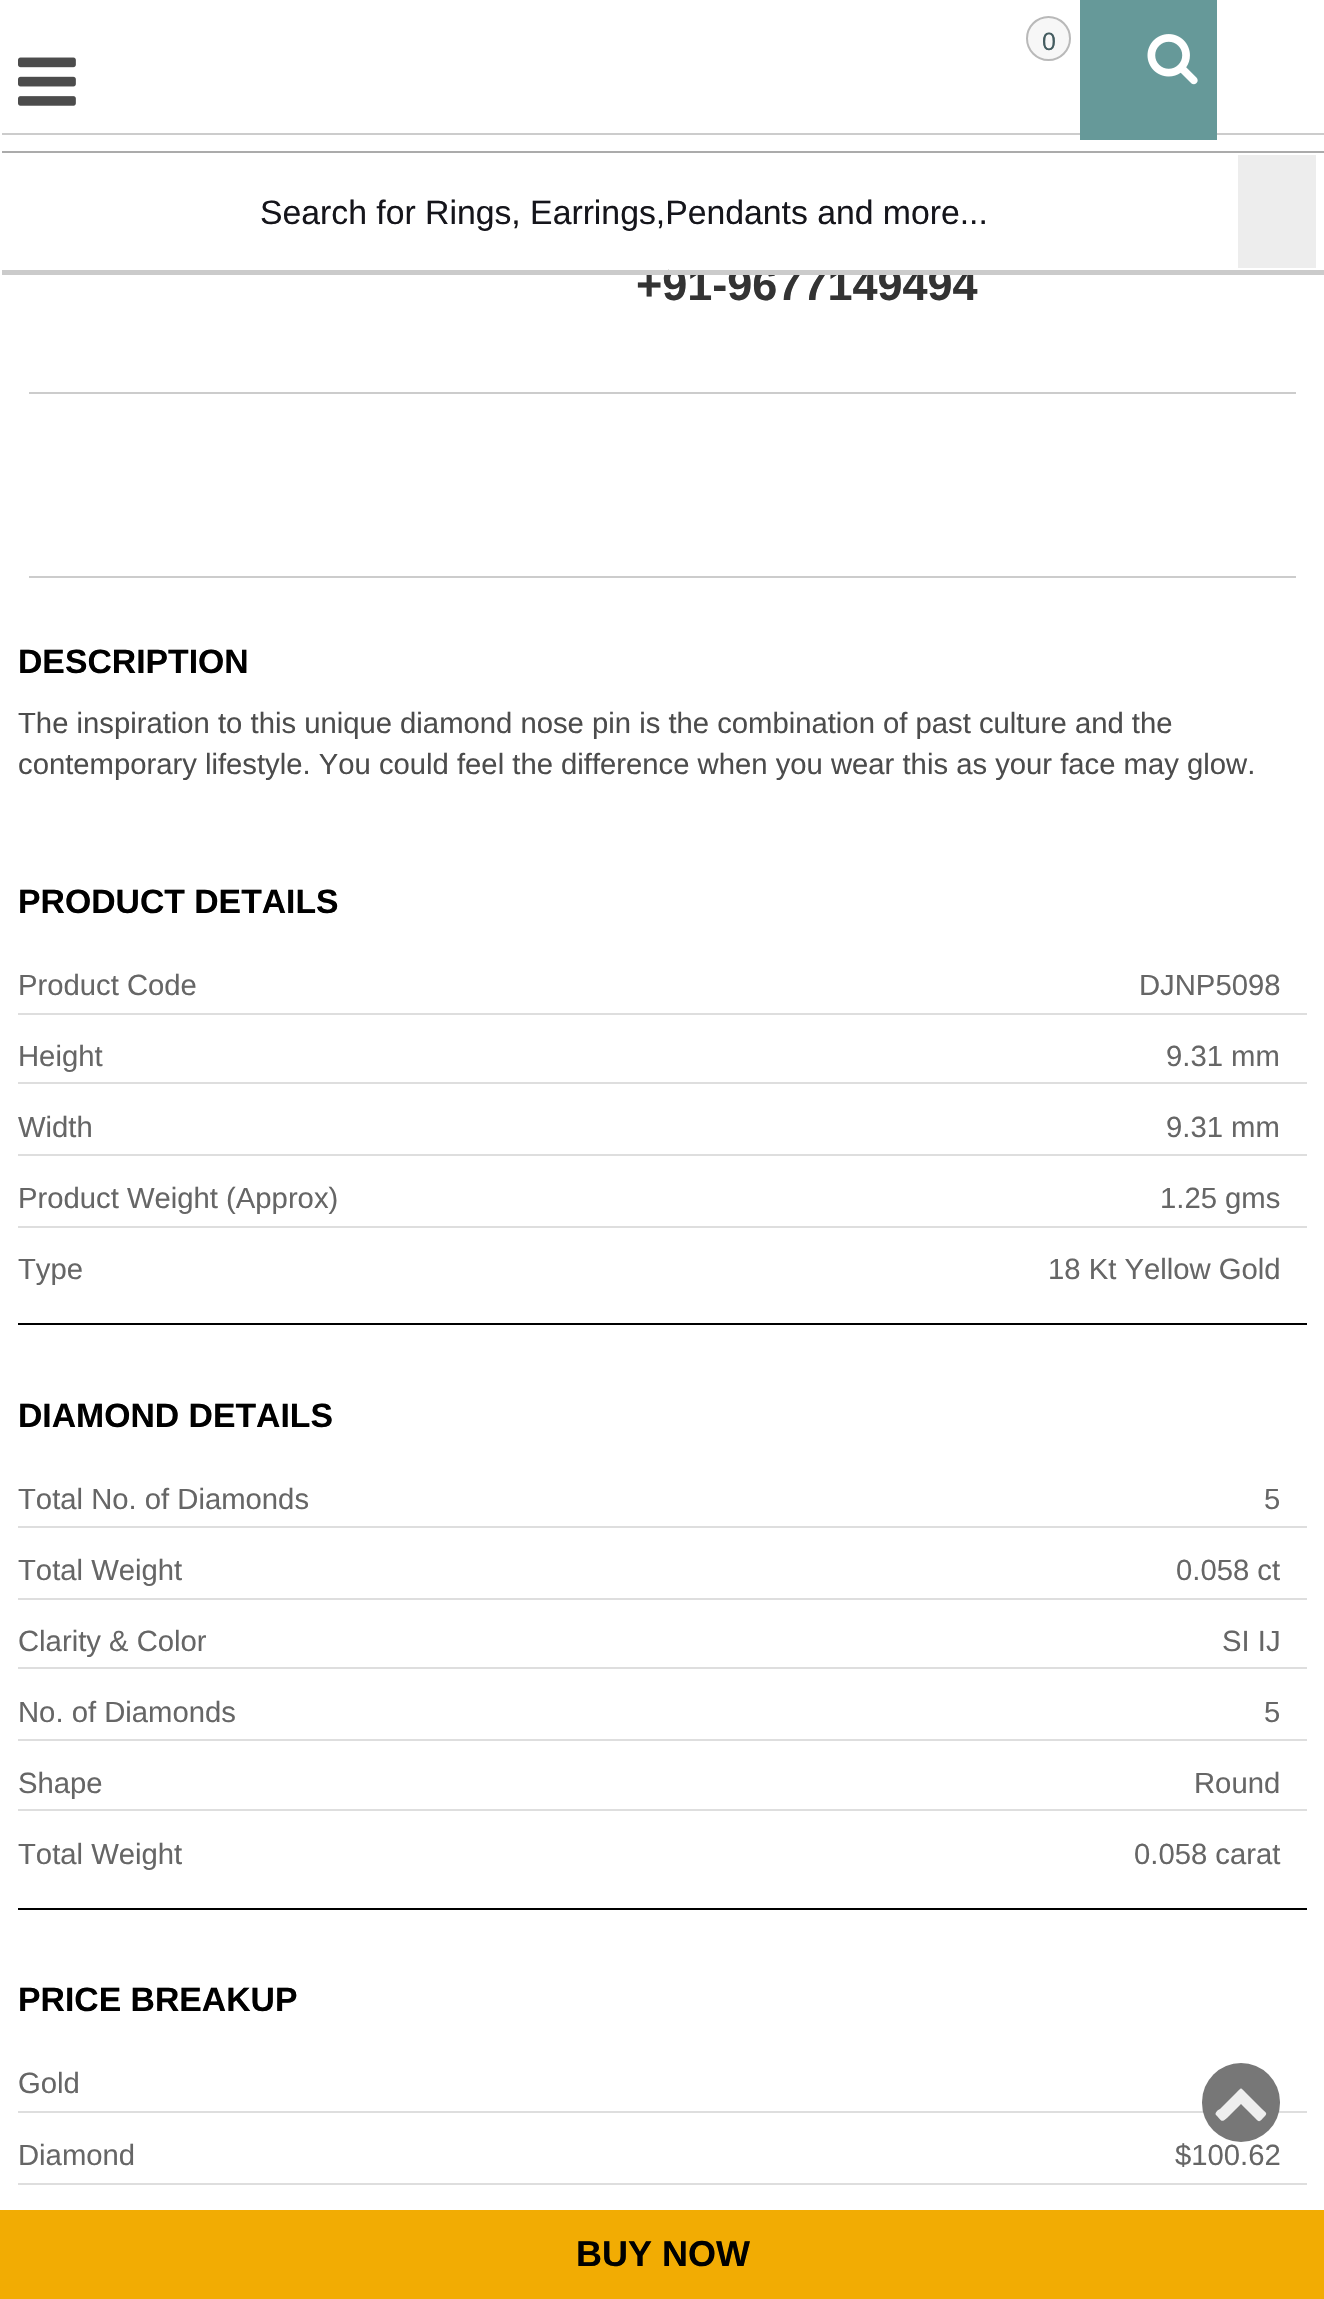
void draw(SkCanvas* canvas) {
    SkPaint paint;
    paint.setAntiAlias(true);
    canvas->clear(0xFFFFFFFF);
    paint.setColor(0xFFCCCCCC);
    canvas->drawRect(SkRect::MakeXYWH(2, 133, 1322, 2), paint);
    paint.setColor(0xFFF7F7F7);
    canvas->drawCircle(1048.5f, 38.5f, 21.5f, paint);
    paint.setStyle(SkPaint::kStroke_Style);
    paint.setStrokeWidth(2);
    paint.setColor(0xFFB9B9B9);
    canvas->drawCircle(1048.5f, 38.5f, 21.5f, paint);
    SkFont font1(fontMgr->matchFamilyStyle("Liberation Sans", SkFontStyle::Normal()), 25);
    font1.setSubpixel(true);
    paint.setStyle(SkPaint::kFill_Style);
    paint.setColor(0xFF445C60);
    canvas->drawString("0", 1042, 50, font1, paint);
    paint.setColor(0xFF669999);
    canvas->drawRect(SkRect::MakeXYWH(1080, 0, 137, 140), paint);
    canvas->drawImageRect(SkImages::DeferredFromEncodedData(SkData::MakeFromFileName("img1.png")), SkRect::MakeXYWH(1147, 34, 51, 51), SkSamplingOptions());
    canvas->drawImageRect(SkImages::DeferredFromEncodedData(SkData::MakeFromFileName("img2.png")), SkRect::MakeXYWH(18, 57, 58, 49), SkSamplingOptions());
    SkFont font2(fontMgr->matchFamilyStyle("Liberation Sans", SkFontStyle::Bold()), 45);
    font2.setSubpixel(true);
    paint.setColor(0xFF333333);
    canvas->drawString("+91-9677149494", 636, 300, font2, paint);
    paint.setColor(0xFFFFFFFF);
    canvas->drawRect(SkRect::MakeXYWH(669, 268, 305, 2), paint);
    paint.setColor(0xFFABABAB);
    canvas->drawRect(SkRect::MakeXYWH(2, 151, 1322, 2), paint);
    paint.setColor(0xFFCBCBCB);
    canvas->drawRect(SkRect::MakeXYWH(2, 270, 1322, 5), paint);
    SkFont font3(fontMgr->matchFamilyStyle("Liberation Sans", SkFontStyle::Normal()), 33.75f);
    font3.setSubpixel(true);
    paint.setColor(0xFF15151B);
    canvas->drawString("Search for Rings, Earrings,Pendants and more...", 260, 224, font3, paint);
    paint.setColor(0xFFEDEDED);
    canvas->drawRect(SkRect::MakeXYWH(1238, 155, 78, 113), paint);
    paint.setColor(0xFFF2AC03);
    canvas->drawRect(SkRect::MakeXYWH(0, 2210, 1324, 89), paint);
    SkFont font4(fontMgr->matchFamilyStyle("Liberation Sans", SkFontStyle::Bold()), 36);
    font4.setSubpixel(true);
    paint.setColor(0xFF000000);
    canvas->drawString("BUY NOW", 576, 2266, font4, paint);
    paint.setColor(0xFFCCCCCC);
    canvas->drawRect(SkRect::MakeXYWH(29, 392, 1267, 2), paint);
    canvas->drawRect(SkRect::MakeXYWH(29, 576, 1267, 2), paint);
    SkFont font5(fontMgr->matchFamilyStyle("Liberation Sans", SkFontStyle::Bold()), 33.75f);
    font5.setSubpixel(true);
    paint.setColor(0xFF000000);
    canvas->drawString("DESCRIPTION", 18, 673, font5, paint);
    SkFont font6(fontMgr->matchFamilyStyle("Liberation Sans", SkFontStyle::Normal()), 29.25f);
    font6.setSubpixel(true);
    paint.setColor(0xFF4C4C4C);
    canvas->drawString("The inspiration to this unique diamond nose pin is the combination of past culture and the", 18, 733, font6, paint);
    canvas->drawString("contemporary lifestyle. You could feel the difference when you wear this as your face may glow.", 18, 774, font6, paint);
    paint.setColor(0xFF000000);
    canvas->drawRect(SkRect::MakeXYWH(18, 1323, 1289, 2), paint);
    canvas->drawString("PRODUCT DETAILS", 18, 913, font5, paint);
    paint.setColor(0xFFDEDEDE);
    canvas->drawRect(SkRect::MakeXYWH(18, 1013, 1289, 2), paint);
    paint.setColor(0xFF666666);
    canvas->drawString("Product Code", 18, 995, font6, paint);
    canvas->drawString("DJNP5098", 1139, 995, font6, paint);
    paint.setColor(0xFFDEDEDE);
    canvas->drawRect(SkRect::MakeXYWH(18, 1082, 1289, 2), paint);
    paint.setColor(0xFF666666);
    canvas->drawString("Height", 18, 1066, font6, paint);
    canvas->drawString("9.31 mm", 1166, 1066, font6, paint);
    paint.setColor(0xFFDEDEDE);
    canvas->drawRect(SkRect::MakeXYWH(18, 1154, 1289, 2), paint);
    paint.setColor(0xFF666666);
    canvas->drawString("Width", 18, 1137, font6, paint);
    canvas->drawString("9.31 mm", 1166, 1137, font6, paint);
    paint.setColor(0xFFDEDEDE);
    canvas->drawRect(SkRect::MakeXYWH(18, 1226, 1289, 2), paint);
    paint.setColor(0xFF666666);
    canvas->drawString("Product Weight (Approx)", 18, 1208, font6, paint);
    canvas->drawString("1.25 gms", 1160, 1208, font6, paint);
    canvas->drawString("Type", 18, 1279, font6, paint);
    canvas->drawString("18 Kt Yellow Gold", 1048, 1279, font6, paint);
    paint.setColor(0xFF000000);
    canvas->drawRect(SkRect::MakeXYWH(18, 1908, 1289, 2), paint);
    canvas->drawString("DIAMOND DETAILS", 18, 1427, font5, paint);
    paint.setColor(0xFFDEDEDE);
    canvas->drawRect(SkRect::MakeXYWH(18, 1526, 1289, 2), paint);
    paint.setColor(0xFF666666);
    canvas->drawString("Total No. of Diamonds", 18, 1509, font6, paint);
    canvas->drawString("5", 1264, 1509, font6, paint);
    paint.setColor(0xFFDEDEDE);
    canvas->drawRect(SkRect::MakeXYWH(18, 1598, 1289, 2), paint);
    paint.setColor(0xFF666666);
    canvas->drawString("Total Weight", 18, 1580, font6, paint);
    canvas->drawString("0.058 ct", 1176, 1580, font6, paint);
    paint.setColor(0xFFDEDEDE);
    canvas->drawRect(SkRect::MakeXYWH(18, 1667, 1289, 2), paint);
    paint.setColor(0xFF666666);
    canvas->drawString("Clarity & Color", 18, 1651, font6, paint);
    canvas->drawString("SI IJ", 1222, 1651, font6, paint);
    paint.setColor(0xFFDEDEDE);
    canvas->drawRect(SkRect::MakeXYWH(18, 1739, 1289, 2), paint);
    paint.setColor(0xFF666666);
    canvas->drawString("No. of Diamonds", 18, 1722, font6, paint);
    canvas->drawString("5", 1264, 1722, font6, paint);
    paint.setColor(0xFFDEDEDE);
    canvas->drawRect(SkRect::MakeXYWH(18, 1809, 1289, 2), paint);
    paint.setColor(0xFF666666);
    canvas->drawString("Shape", 18, 1793, font6, paint);
    canvas->drawString("Round", 1194, 1793, font6, paint);
    canvas->drawString("Total Weight", 18, 1864, font6, paint);
    canvas->drawString("0.058 carat", 1134, 1864, font6, paint);
    paint.setColor(0xFF000000);
    canvas->drawString("PRICE BREAKUP", 18, 2011, font5, paint);
    paint.setColor(0xFFDEDEDE);
    canvas->drawRect(SkRect::MakeXYWH(18, 2111, 1289, 2), paint);
    paint.setColor(0xFF666666);
    canvas->drawString("Gold", 18, 2093, font6, paint);
    paint.setColor(0xFFDEDEDE);
    canvas->drawRect(SkRect::MakeXYWH(18, 2183, 1289, 2), paint);
    paint.setColor(0xFF666666);
    canvas->drawString("Diamond", 18, 2165, font6, paint);
    canvas->drawString("$100.62", 1175, 2165, font6, paint);
    paint.setColor(0xFF777777);
    canvas->drawRoundRect(SkRect::MakeXYWH(1202, 2063, 78, 79), 39, 39, paint);
    paint.setColor(0xFFEEEEEE);
    canvas->drawPath(SkPathBuilder().moveTo(1216, 2115).cubicTo(1214, 2113, 1219, 2109, 1220, 2109).lineTo(1236, 2093).cubicTo(1242, 2087, 1240, 2087, 1246, 2093).lineTo(1262, 2109).cubicTo(1265, 2112, 1268, 2113, 1265, 2116).cubicTo(1259, 2122, 1260, 2123, 1255, 2118).lineTo(1241, 2104).lineTo(1227, 2118).cubicTo(1221, 2123, 1222, 2121, 1216, 2115).close().detach(), paint);
}
